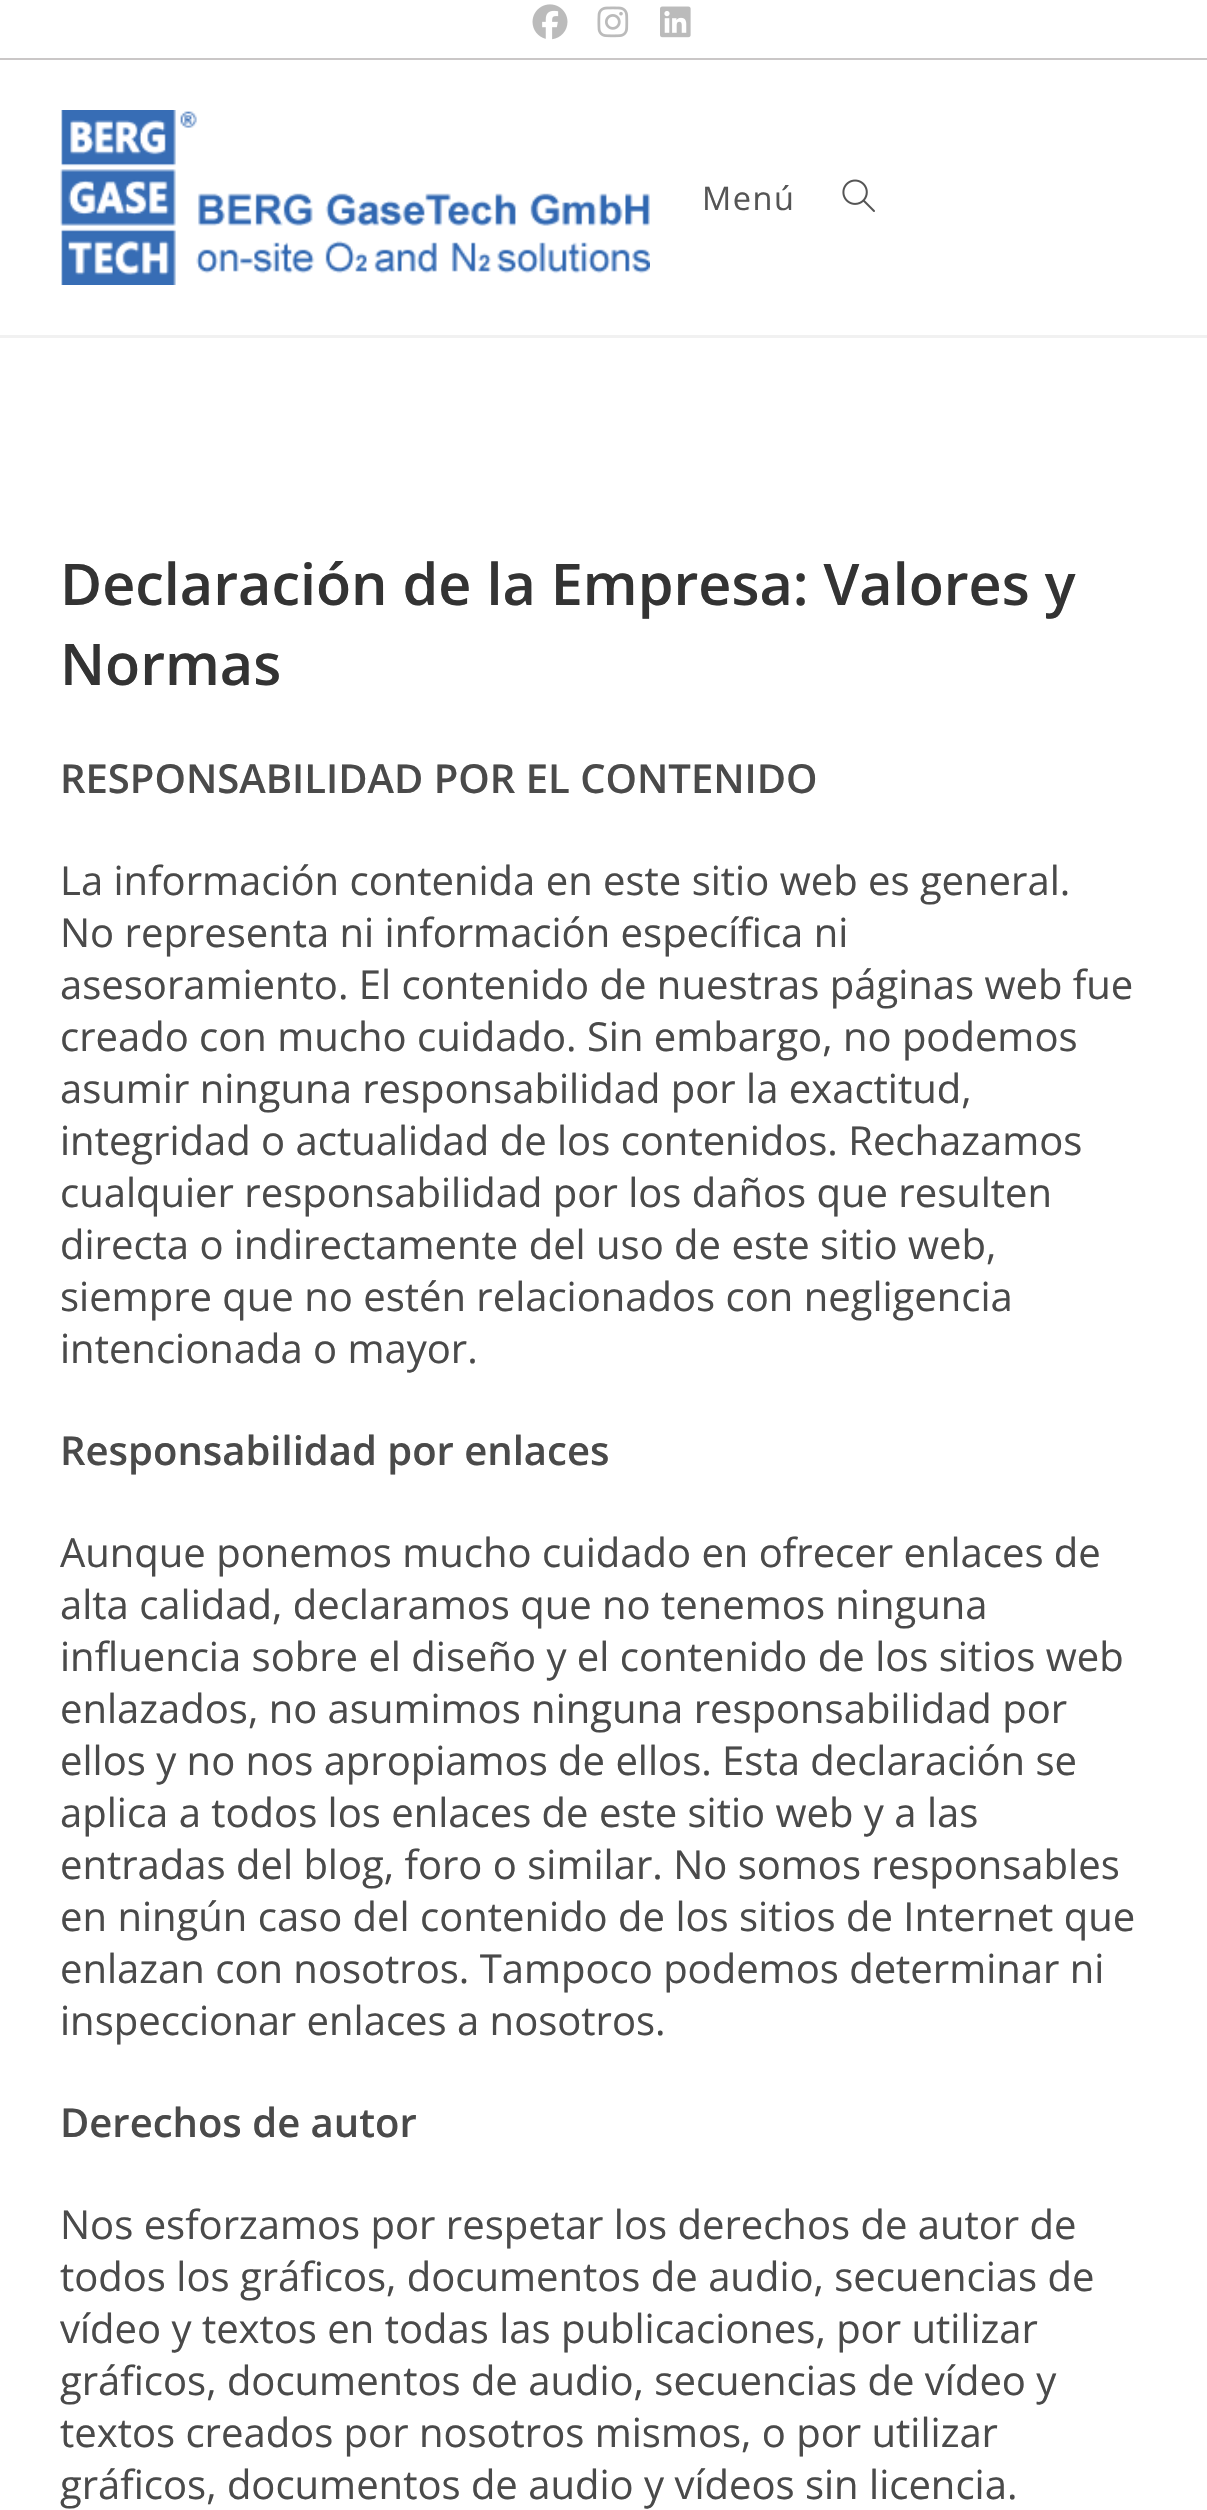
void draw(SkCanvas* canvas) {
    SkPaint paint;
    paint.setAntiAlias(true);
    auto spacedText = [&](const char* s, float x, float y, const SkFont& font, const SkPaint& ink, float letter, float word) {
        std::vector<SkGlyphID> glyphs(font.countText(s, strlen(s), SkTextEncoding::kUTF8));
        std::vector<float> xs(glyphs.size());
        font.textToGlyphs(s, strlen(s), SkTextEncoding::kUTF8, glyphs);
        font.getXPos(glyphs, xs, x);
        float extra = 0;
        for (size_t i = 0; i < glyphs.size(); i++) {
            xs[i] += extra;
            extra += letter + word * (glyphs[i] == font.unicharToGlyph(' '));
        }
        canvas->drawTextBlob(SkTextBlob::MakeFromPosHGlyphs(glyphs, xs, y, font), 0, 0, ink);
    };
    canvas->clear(0xFFFFFFFF);
    paint.setColor(0xFFCAC7C7);
    canvas->drawRect(SkRect::MakeXYWH(0, 58, 1207, 2), paint);
    canvas->drawImageRect(SkImages::DeferredFromEncodedData(SkData::MakeFromFileName("img1.png")), SkRect::MakeXYWH(532, 4, 36, 36), SkSamplingOptions());
    canvas->drawImageRect(SkImages::DeferredFromEncodedData(SkData::MakeFromFileName("img2.png")), SkRect::MakeXYWH(597, 6, 32, 32), SkSamplingOptions());
    canvas->drawImageRect(SkImages::DeferredFromEncodedData(SkData::MakeFromFileName("img3.png")), SkRect::MakeXYWH(660, 6, 31, 32), SkSamplingOptions());
    paint.setColor(0xFFF1F1F1);
    canvas->drawRect(SkRect::MakeXYWH(0, 335, 1207, 3), paint);
    canvas->drawImageRect(SkImages::DeferredFromEncodedData(SkData::MakeFromFileName("img4.png")), SkRect::MakeXYWH(60, 110, 590, 175), SkSamplingOptions());
    SkFont font1(fontMgr->matchFamilyStyle("Open Sans", SkFontStyle::Normal()), 32.5f);
    font1.setSubpixel(true);
    paint.setColor(0xFF555555);
    spacedText("Menú", 702, 210, font1, paint, 1.5f, 0);
    canvas->drawImageRect(SkImages::DeferredFromEncodedData(SkData::MakeFromFileName("img5.png")), SkRect::MakeXYWH(842, 179, 33, 33), SkSamplingOptions());
    SkFont font2(fontMgr->matchFamilyStyle("Open Sans", SkFontStyle(600, SkFontStyle::kNormal_Width, SkFontStyle::kUpright_Slant)), 57.5f);
    font2.setSubpixel(true);
    paint.setColor(0xFF333333);
    canvas->drawString("Declaración de la Empresa: Valores y", 60, 605, font2, paint);
    canvas->drawString("Normas", 60, 685, font2, paint);
    SkFont font3(fontMgr->matchFamilyStyle("Open Sans", SkFontStyle(600, SkFontStyle::kNormal_Width, SkFontStyle::kUpright_Slant)), 40);
    font3.setSubpixel(true);
    paint.setColor(0xFF4A4A4A);
    canvas->drawString("RESPONSABILIDAD POR EL CONTENIDO", 60, 793, font3, paint);
    SkFont font4(fontMgr->matchFamilyStyle("Open Sans", SkFontStyle::Normal()), 40);
    font4.setSubpixel(true);
    canvas->drawString("La información contenida en este sitio web es general.", 60, 895, font4, paint);
    canvas->drawString("No representa ni información específica ni", 60, 947, font4, paint);
    canvas->drawString("asesoramiento. El contenido de nuestras páginas web fue", 60, 999, font4, paint);
    canvas->drawString("creado con mucho cuidado. Sin embargo, no podemos", 60, 1051, font4, paint);
    canvas->drawString("asumir ninguna responsabilidad por la exactitud,", 60, 1103, font4, paint);
    canvas->drawString("integridad o actualidad de los contenidos. Rechazamos", 60, 1155, font4, paint);
    canvas->drawString("cualquier responsabilidad por los daños que resulten", 60, 1207, font4, paint);
    canvas->drawString("directa o indirectamente del uso de este sitio web,", 60, 1259, font4, paint);
    canvas->drawString("siempre que no estén relacionados con negligencia", 60, 1311, font4, paint);
    canvas->drawString("intencionada o mayor.", 60, 1363, font4, paint);
    canvas->drawString("Responsabilidad por enlaces", 60, 1465, font3, paint);
    canvas->drawString("Aunque ponemos mucho cuidado en ofrecer enlaces de", 60, 1567, font4, paint);
    canvas->drawString("alta calidad, declaramos que no tenemos ninguna", 60, 1619, font4, paint);
    canvas->drawString("influencia sobre el diseño y el contenido de los sitios web", 60, 1671, font4, paint);
    canvas->drawString("enlazados, no asumimos ninguna responsabilidad por", 60, 1723, font4, paint);
    canvas->drawString("ellos y no nos apropiamos de ellos. Esta declaración se", 60, 1775, font4, paint);
    canvas->drawString("aplica a todos los enlaces de este sitio web y a las", 60, 1827, font4, paint);
    canvas->drawString("entradas del blog, foro o similar. No somos responsables", 60, 1879, font4, paint);
    canvas->drawString("en ningún caso del contenido de los sitios de Internet que", 60, 1931, font4, paint);
    canvas->drawString("enlazan con nosotros. Tampoco podemos determinar ni", 60, 1983, font4, paint);
    canvas->drawString("inspeccionar enlaces a nosotros.", 60, 2035, font4, paint);
    canvas->drawString("Derechos de autor", 60, 2137, font3, paint);
    canvas->drawString("Nos esforzamos por respetar los derechos de autor de", 60, 2239, font4, paint);
    canvas->drawString("todos los gráficos, documentos de audio, secuencias de", 60, 2291, font4, paint);
    canvas->drawString("vídeo y textos en todas las publicaciones, por utilizar", 60, 2343, font4, paint);
    canvas->drawString("gráficos, documentos de audio, secuencias de vídeo y", 60, 2395, font4, paint);
    canvas->drawString("textos creados por nosotros mismos, o por utilizar", 60, 2447, font4, paint);
    canvas->drawString("gráficos, documentos de audio y vídeos sin licencia.", 60, 2499, font4, paint);
}
